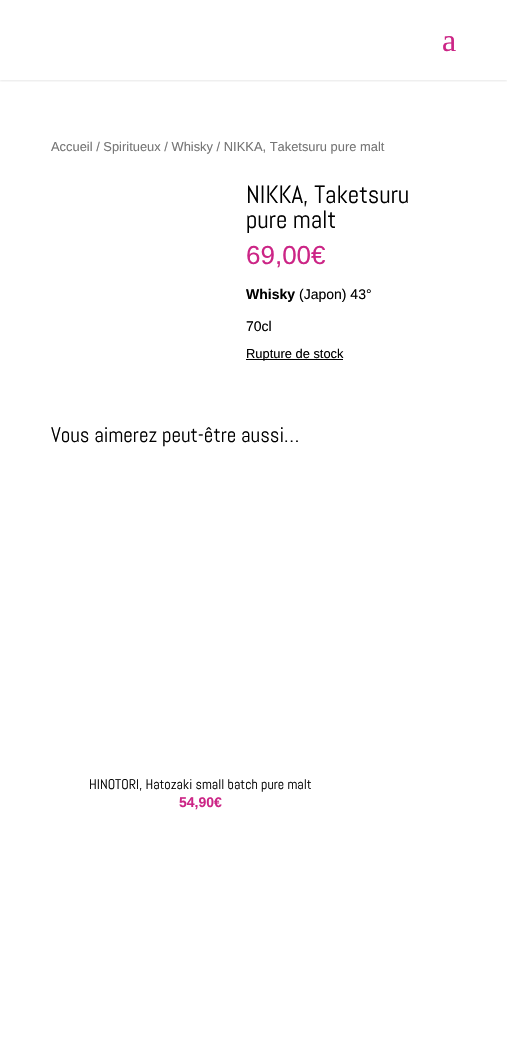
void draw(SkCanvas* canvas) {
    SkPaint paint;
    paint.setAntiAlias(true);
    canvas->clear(0xFFFFFFFF);
    canvas->save();
    canvas->clipRect(SkRect::MakeXYWH(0, 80, 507, 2));
    paint.setColor(0x17040000);
    paint.setMaskFilter(SkMaskFilter::MakeBlur(kNormal_SkBlurStyle, 1));
    canvas->drawRect(SkRect::MakeXYWH(0, 1, 507, 80), paint);
    paint.setMaskFilter(nullptr);
    canvas->restore();
    SkFont font1(fontMgr->matchFamilyStyle("Liberation Serif", SkFontStyle::Normal()), 32);
    font1.setSubpixel(true);
    paint.setColor(0xFFCC2586);
    canvas->drawString("a", 442, 51, font1, paint);
    SkFont font2(fontMgr->matchFamilyStyle("Liberation Sans", SkFontStyle::Normal()), 12.9f);
    font2.setSubpixel(true);
    paint.setColor(0xFF767676);
    canvas->drawString("Accueil / Spiritueux / Whisky / NIKKA, Taketsuru pure malt", 51, 151, font2, paint);
    SkFont font3(fontMgr->matchFamilyStyle("Abel", SkFontStyle::Normal()), 25);
    font3.setSubpixel(true);
    paint.setColor(0xFF000000);
    canvas->drawString("NIKKA, Taketsuru", 246, 203, font3, paint);
    canvas->drawString("pure malt", 246, 228, font3, paint);
    SkFont font4(fontMgr->matchFamilyStyle("Liberation Sans", SkFontStyle::Normal()), 26);
    font4.setSubpixel(true);
    paint.setColor(0xFFCC2586);
    canvas->drawString("69,00€", 246, 264, font4, paint);
    SkFont font5(fontMgr->matchFamilyStyle("Liberation Sans", SkFontStyle::Bold()), 14);
    font5.setSubpixel(true);
    paint.setColor(0xFF000000);
    canvas->drawString("Whisky", 246, 299, font5, paint);
    SkFont font6(fontMgr->matchFamilyStyle("Liberation Sans", SkFontStyle::Normal()), 14);
    font6.setSubpixel(true);
    canvas->drawString("(Japon) 43°", 299, 299, font6, paint);
    canvas->drawString("70cl", 246, 331, font6, paint);
    canvas->drawRect(SkRect::MakeXYWH(246, 359, 97, 1), paint);
    canvas->drawString("Rupture de stock", 246, 358, font2, paint);
    SkFont font7(fontMgr->matchFamilyStyle("Abel", SkFontStyle::Normal()), 21);
    font7.setSubpixel(true);
    canvas->drawString("Vous aimerez peut-être aussi…", 51, 442, font7, paint);
    SkFont font8(fontMgr->matchFamilyStyle("Abel", SkFontStyle::Normal()), 14);
    font8.setSubpixel(true);
    canvas->drawString("HINOTORI, Hatozaki small batch pure malt", 89, 789, font8, paint);
    paint.setColor(0xFFCC2586);
    canvas->drawString("54,90€", 179, 807, font5, paint);
}
